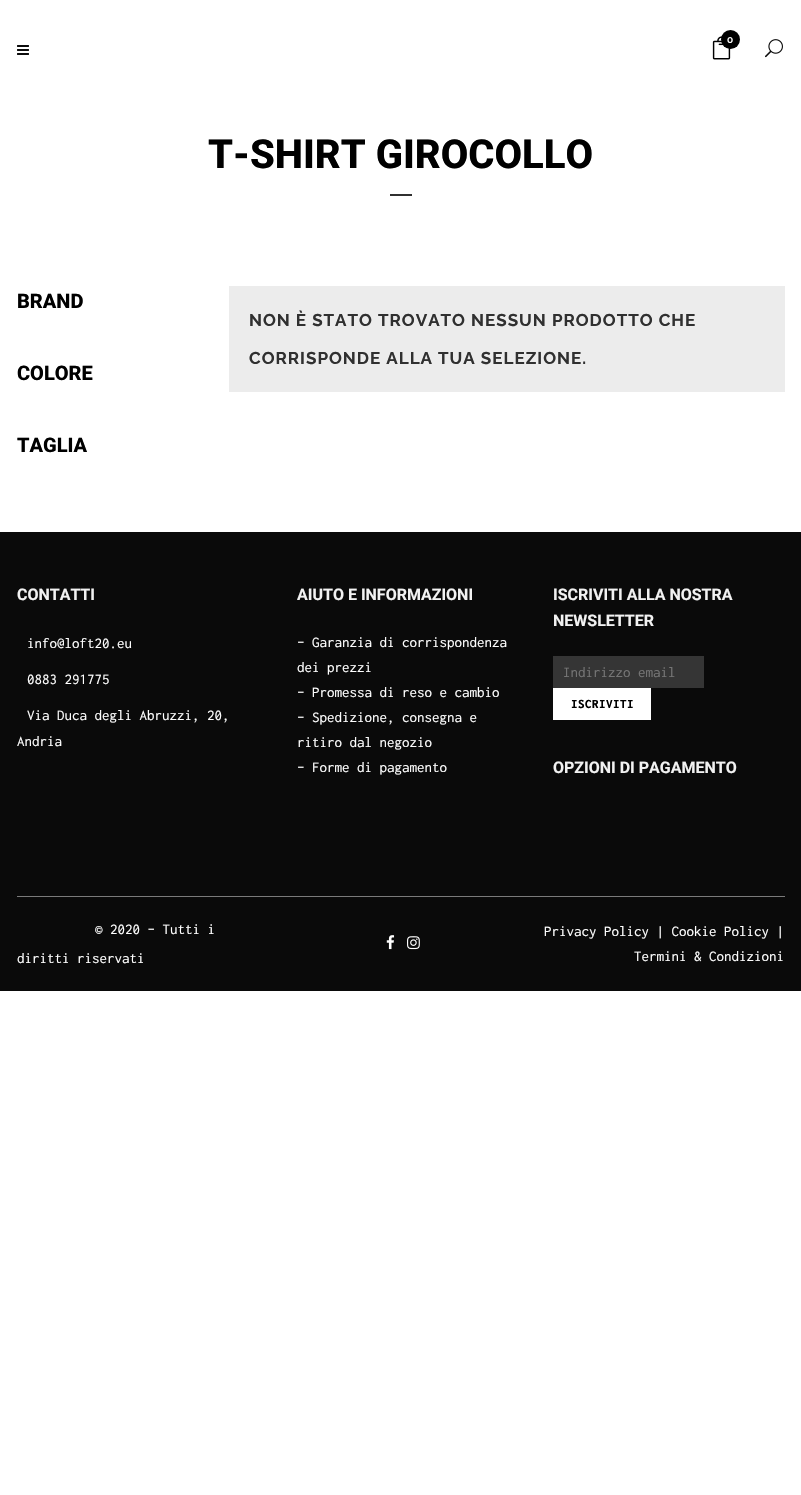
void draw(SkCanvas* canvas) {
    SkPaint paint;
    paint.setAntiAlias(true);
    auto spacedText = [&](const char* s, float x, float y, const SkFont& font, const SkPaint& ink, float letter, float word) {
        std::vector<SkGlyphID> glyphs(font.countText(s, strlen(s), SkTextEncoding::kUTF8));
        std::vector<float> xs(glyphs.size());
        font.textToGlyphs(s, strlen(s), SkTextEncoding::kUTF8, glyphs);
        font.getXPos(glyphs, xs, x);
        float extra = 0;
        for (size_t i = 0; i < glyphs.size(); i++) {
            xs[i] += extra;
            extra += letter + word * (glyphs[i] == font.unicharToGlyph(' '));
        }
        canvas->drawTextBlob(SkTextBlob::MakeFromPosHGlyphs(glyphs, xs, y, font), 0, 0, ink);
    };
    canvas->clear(0xFFFFFFFF);
    canvas->drawImageRect(SkImages::DeferredFromEncodedData(SkData::MakeFromFileName("img1.png")), SkRect::MakeXYWH(712, 36, 19, 24), SkSamplingOptions());
    paint.setColor(0xFF000000);
    canvas->drawCircle(730.5f, 39.5f, 9.5f, paint);
    SkFont font1(fontMgr->matchFamilyStyle("Raleway", SkFontStyle(600, SkFontStyle::kNormal_Width, SkFontStyle::kUpright_Slant)), 10);
    font1.setSubpixel(true);
    paint.setColor(0xFFFFFFFF);
    canvas->drawString("0", 727, 43, font1, paint);
    canvas->drawImageRect(SkImages::DeferredFromEncodedData(SkData::MakeFromFileName("img2.png")), SkRect::MakeXYWH(765, 39, 18, 19), SkSamplingOptions());
    canvas->drawImageRect(SkImages::DeferredFromEncodedData(SkData::MakeFromFileName("img3.png")), SkRect::MakeXYWH(17, 45, 12, 10), SkSamplingOptions());
    SkFont font2(fontMgr->matchFamilyStyle("Roboto", SkFontStyle(800, SkFontStyle::kNormal_Width, SkFontStyle::kUpright_Slant)), 40);
    font2.setSubpixel(true);
    paint.setColor(0xFF000000);
    canvas->drawString("T-SHIRT GIROCOLLO", 208, 168, font2, paint);
    paint.setColor(0xFF303030);
    canvas->drawRect(SkRect::MakeXYWH(390, 194, 22, 2), paint);
    SkFont font3(fontMgr->matchFamilyStyle("Roboto", SkFontStyle(800, SkFontStyle::kNormal_Width, SkFontStyle::kUpright_Slant)), 20);
    font3.setSubpixel(true);
    paint.setColor(0xFF000000);
    canvas->drawString("BRAND", 17, 308, font3, paint);
    canvas->drawString("COLORE", 17, 380, font3, paint);
    canvas->drawString("TAGLIA", 17, 452, font3, paint);
    paint.setColor(0xFFECECEC);
    canvas->drawRect(SkRect::MakeXYWH(229, 286, 556, 106), paint);
    SkFont font4(fontMgr->matchFamilyStyle("Raleway", SkFontStyle::Bold()), 17);
    font4.setSubpixel(true);
    paint.setColor(0xFF303030);
    spacedText("NON È STATO TROVATO NESSUN PRODOTTO CHE", 249, 326, font4, paint, 1, 0);
    spacedText("CORRISPONDE ALLA TUA SELEZIONE.", 249, 364, font4, paint, 1, 0);
    paint.setColor(0xFF0A0A0A);
    canvas->drawRect(SkRect::MakeXYWH(0, 532, 801, 459), paint);
    SkFont font5(fontMgr->matchFamilyStyle("Roboto", SkFontStyle::Bold()), 16);
    font5.setSubpixel(true);
    paint.setColor(0xFFF2F2F2);
    canvas->drawString("CONTATTI", 17, 600, font5, paint);
    SkFont font6(fontMgr->matchFamilyStyle("Inconsolata", SkFontStyle::Normal()), 15);
    font6.setSubpixel(true);
    paint.setColor(0xFFFFFFFF);
    canvas->drawString("info@loft20.eu", 27, 648, font6, paint);
    canvas->drawString("0883 291775", 27, 684, font6, paint);
    canvas->drawString("Via Duca degli Abruzzi, 20,", 27, 720, font6, paint);
    canvas->drawString("Andria", 17, 746, font6, paint);
    paint.setColor(0xFFF2F2F2);
    canvas->drawString("AIUTO E INFORMAZIONI", 297, 600, font5, paint);
    paint.setColor(0xFFFFFFFF);
    canvas->drawString("– Garanzia di corrispondenza", 297, 647, font6, paint);
    canvas->drawString("dei prezzi", 297, 672, font6, paint);
    canvas->drawString("– Promessa di reso e cambio", 297, 697, font6, paint);
    canvas->drawString("– Spedizione, consegna e", 297, 722, font6, paint);
    canvas->drawString("ritiro dal negozio", 297, 747, font6, paint);
    canvas->drawString("– Forme di pagamento", 297, 772, font6, paint);
    paint.setColor(0xFFF2F2F2);
    canvas->drawString("ISCRIVITI ALLA NOSTRA", 553, 600, font5, paint);
    canvas->drawString("NEWSLETTER", 553, 626, font5, paint);
    paint.setColor(0xFF353535);
    canvas->drawRect(SkRect::MakeXYWH(553, 656, 151, 32), paint);
    paint.setColor(0xFF757575);
    canvas->drawString("Indirizzo email", 563, 677, font6, paint);
    paint.setColor(0xFFFFFFFF);
    canvas->drawRect(SkRect::MakeXYWH(553, 688, 98, 32), paint);
    SkFont font7(fontMgr->matchFamilyStyle("Inconsolata", SkFontStyle(800, SkFontStyle::kNormal_Width, SkFontStyle::kUpright_Slant)), 13);
    font7.setSubpixel(true);
    paint.setColor(0xFF000000);
    spacedText("ISCRIVITI", 571, 708, font7, paint, 0.5f, 0);
    paint.setColor(0xFFF2F2F2);
    canvas->drawString("OPZIONI DI PAGAMENTO", 553, 773, font5, paint);
    paint.setColor(0xFF7A7A7A);
    canvas->drawRect(SkRect::MakeXYWH(17, 896, 768, 1), paint);
    paint.setColor(0xFFFFFFFF);
    canvas->drawString("© 2020 – Tutti i", 95, 934, font6, paint);
    canvas->drawString("diritti riservati", 17, 963, font6, paint);
    canvas->drawImageRect(SkImages::DeferredFromEncodedData(SkData::MakeFromFileName("img4.png")), SkRect::MakeXYWH(386, 935, 9, 15), SkSamplingOptions());
    canvas->drawImageRect(SkImages::DeferredFromEncodedData(SkData::MakeFromFileName("img5.png")), SkRect::MakeXYWH(407, 936, 13, 14), SkSamplingOptions());
    canvas->drawString("Privacy Policy | Cookie Policy |", 544, 936, font6, paint);
    canvas->drawString("Termini & Condizioni", 634, 961, font6, paint);
}
